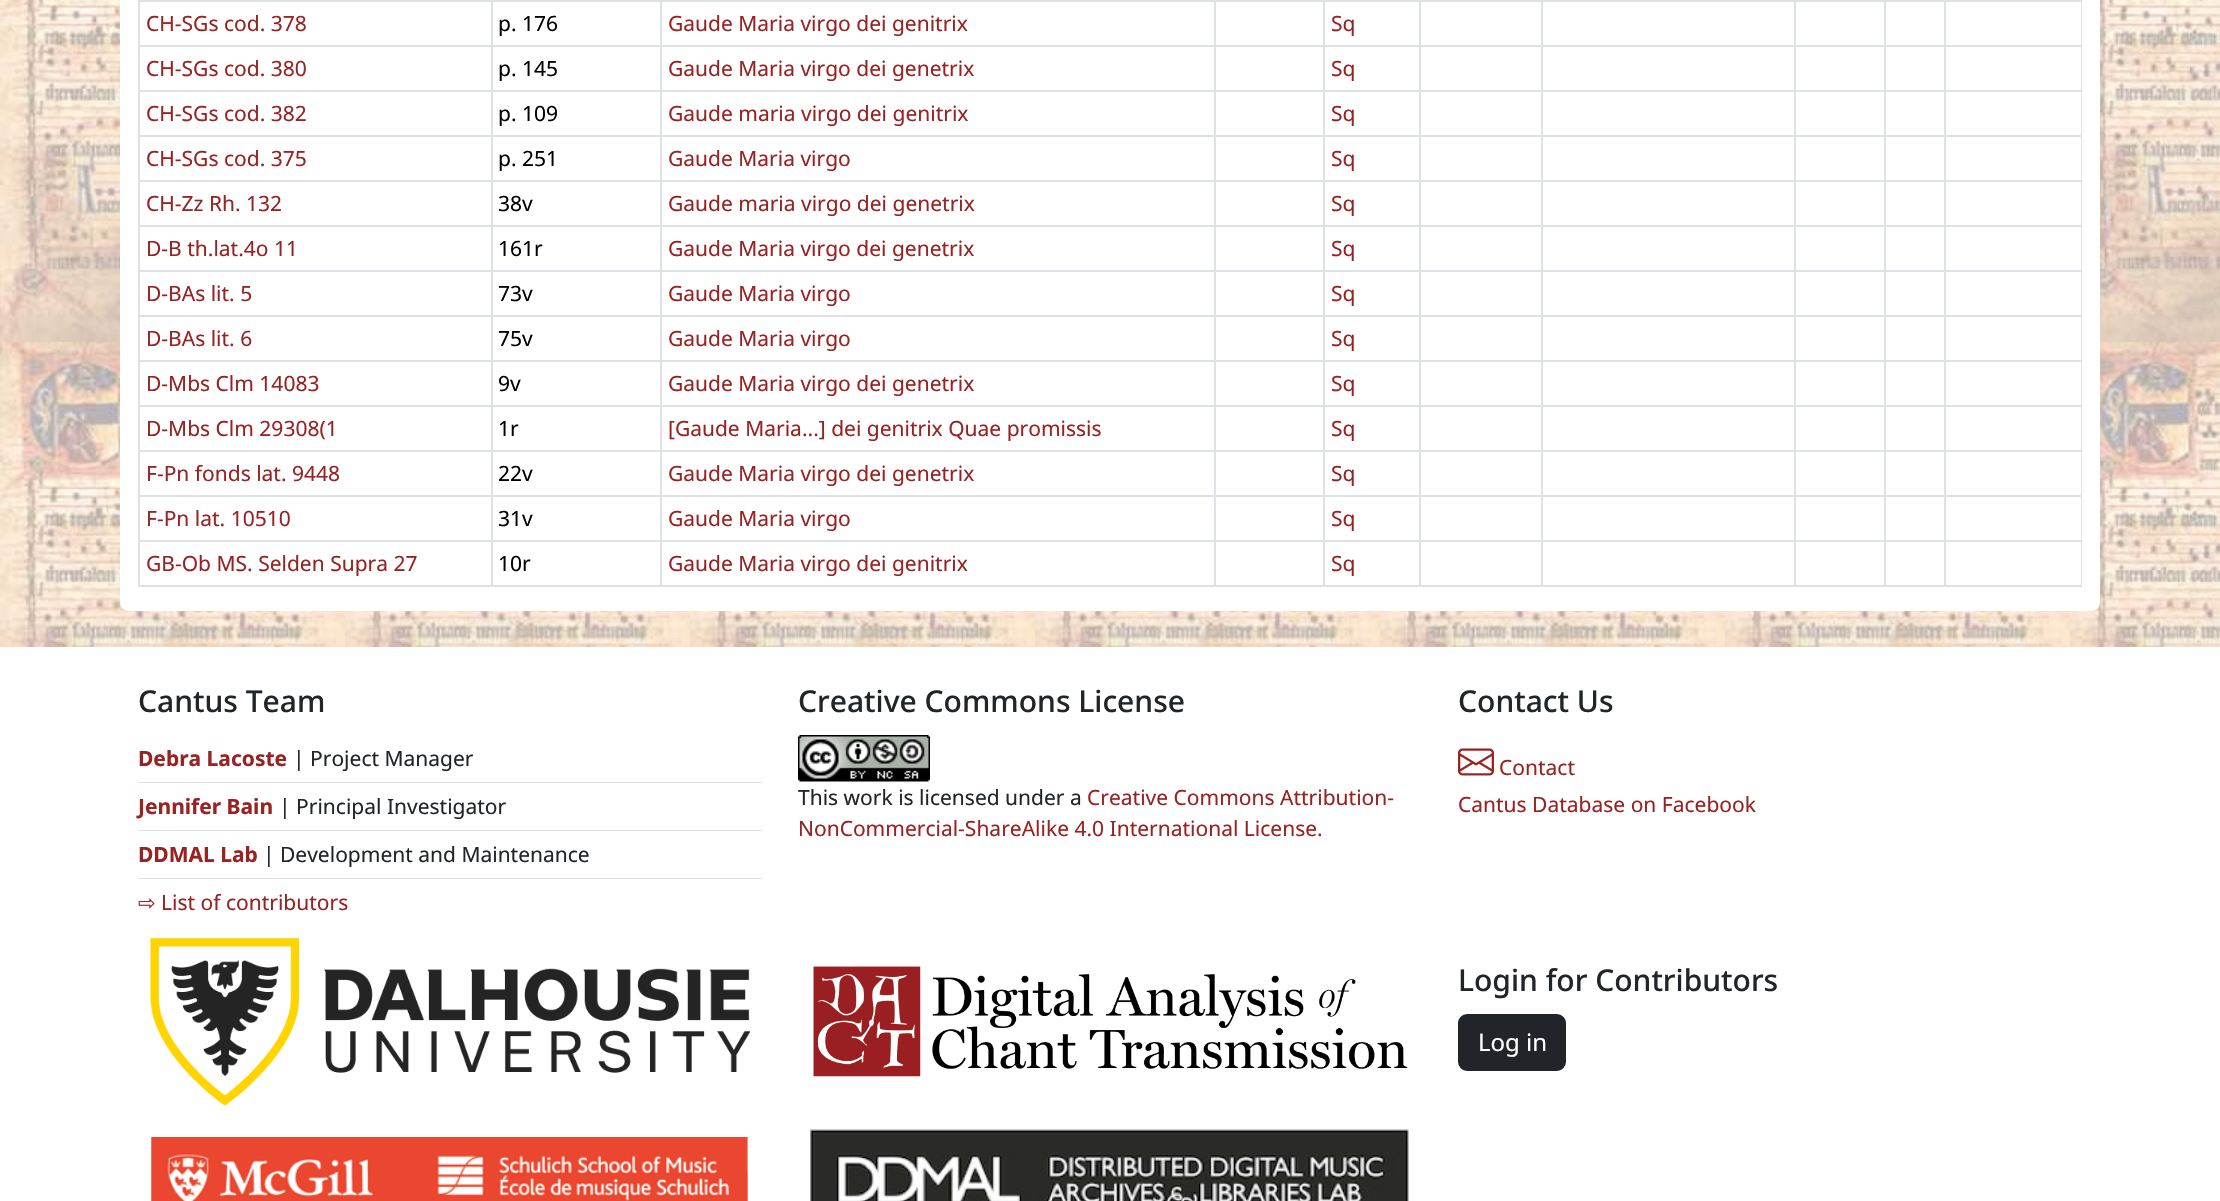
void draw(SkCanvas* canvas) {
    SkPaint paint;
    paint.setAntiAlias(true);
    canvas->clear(0xFFFFFFFF);
    canvas->drawImageRect(SkImages::DeferredFromEncodedData(SkData::MakeFromFileName("img1.png")), SkRect::MakeXYWH(0, 0, 2220, 647), SkSamplingOptions());
    paint.setColor(0xFFFFFFFF);
    canvas->drawRoundRect(SkRect::MakeXYWH(120, -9, 1980, 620), 9, 9, paint);
    paint.setColor(0xFFDEE2E6);
    canvas->drawRect(SkRect::MakeXYWH(138, 0, 1944, 2), paint);
    SkFont font1(fontMgr->matchFamilyStyle("Noto Sans", SkFontStyle::Normal()), 21);
    font1.setSubpixel(true);
    paint.setColor(0xFF992222);
    canvas->drawString("CH-SGs cod. 378", 146, 31, font1, paint);
    paint.setColor(0xFF000000);
    canvas->drawString("p. 176", 498, 31, font1, paint);
    paint.setColor(0xFF992222);
    canvas->drawString("Gaude Maria virgo dei genitrix", 668, 31, font1, paint);
    canvas->drawString("Sq", 1331, 31, font1, paint);
    paint.setColor(0xFFDEE2E6);
    canvas->drawRect(SkRect::MakeXYWH(138, 45, 1944, 2), paint);
    paint.setColor(0xFF992222);
    canvas->drawString("CH-SGs cod. 380", 146, 76, font1, paint);
    paint.setColor(0xFF000000);
    canvas->drawString("p. 145", 498, 76, font1, paint);
    paint.setColor(0xFF992222);
    canvas->drawString("Gaude Maria virgo dei genetrix", 668, 76, font1, paint);
    canvas->drawString("Sq", 1331, 76, font1, paint);
    paint.setColor(0xFFDEE2E6);
    canvas->drawRect(SkRect::MakeXYWH(138, 90, 1944, 2), paint);
    paint.setColor(0xFF992222);
    canvas->drawString("CH-SGs cod. 382", 146, 121, font1, paint);
    paint.setColor(0xFF000000);
    canvas->drawString("p. 109", 498, 121, font1, paint);
    paint.setColor(0xFF992222);
    canvas->drawString("Gaude maria virgo dei genitrix", 668, 121, font1, paint);
    canvas->drawString("Sq", 1331, 121, font1, paint);
    paint.setColor(0xFFDEE2E6);
    canvas->drawRect(SkRect::MakeXYWH(138, 135, 1944, 2), paint);
    paint.setColor(0xFF992222);
    canvas->drawString("CH-SGs cod. 375", 146, 166, font1, paint);
    paint.setColor(0xFF000000);
    canvas->drawString("p. 251", 498, 166, font1, paint);
    paint.setColor(0xFF992222);
    canvas->drawString("Gaude Maria virgo", 668, 166, font1, paint);
    canvas->drawString("Sq", 1331, 166, font1, paint);
    paint.setColor(0xFFDEE2E6);
    canvas->drawRect(SkRect::MakeXYWH(138, 180, 1944, 2), paint);
    paint.setColor(0xFF992222);
    canvas->drawString("CH-Zz Rh. 132", 146, 211, font1, paint);
    paint.setColor(0xFF000000);
    canvas->drawString("38v", 498, 211, font1, paint);
    paint.setColor(0xFF992222);
    canvas->drawString("Gaude maria virgo dei genetrix", 668, 211, font1, paint);
    canvas->drawString("Sq", 1331, 211, font1, paint);
    paint.setColor(0xFFDEE2E6);
    canvas->drawRect(SkRect::MakeXYWH(138, 225, 1944, 2), paint);
    paint.setColor(0xFF992222);
    canvas->drawString("D-B th.lat.4o 11", 146, 256, font1, paint);
    paint.setColor(0xFF000000);
    canvas->drawString("161r", 498, 256, font1, paint);
    paint.setColor(0xFF992222);
    canvas->drawString("Gaude Maria virgo dei genetrix", 668, 256, font1, paint);
    canvas->drawString("Sq", 1331, 256, font1, paint);
    paint.setColor(0xFFDEE2E6);
    canvas->drawRect(SkRect::MakeXYWH(138, 270, 1944, 2), paint);
    paint.setColor(0xFF992222);
    canvas->drawString("D-BAs lit. 5", 146, 301, font1, paint);
    paint.setColor(0xFF000000);
    canvas->drawString("73v", 498, 301, font1, paint);
    paint.setColor(0xFF992222);
    canvas->drawString("Gaude Maria virgo", 668, 301, font1, paint);
    canvas->drawString("Sq", 1331, 301, font1, paint);
    paint.setColor(0xFFDEE2E6);
    canvas->drawRect(SkRect::MakeXYWH(138, 315, 1944, 2), paint);
    paint.setColor(0xFF992222);
    canvas->drawString("D-BAs lit. 6", 146, 346, font1, paint);
    paint.setColor(0xFF000000);
    canvas->drawString("75v", 498, 346, font1, paint);
    paint.setColor(0xFF992222);
    canvas->drawString("Gaude Maria virgo", 668, 346, font1, paint);
    canvas->drawString("Sq", 1331, 346, font1, paint);
    paint.setColor(0xFFDEE2E6);
    canvas->drawRect(SkRect::MakeXYWH(138, 360, 1944, 2), paint);
    paint.setColor(0xFF992222);
    canvas->drawString("D-Mbs Clm 14083", 146, 391, font1, paint);
    paint.setColor(0xFF000000);
    canvas->drawString("9v", 498, 391, font1, paint);
    paint.setColor(0xFF992222);
    canvas->drawString("Gaude Maria virgo dei genetrix", 668, 391, font1, paint);
    canvas->drawString("Sq", 1331, 391, font1, paint);
    paint.setColor(0xFFDEE2E6);
    canvas->drawRect(SkRect::MakeXYWH(138, 405, 1944, 2), paint);
    paint.setColor(0xFF992222);
    canvas->drawString("D-Mbs Clm 29308(1", 146, 436, font1, paint);
    paint.setColor(0xFF000000);
    canvas->drawString("1r", 498, 436, font1, paint);
    paint.setColor(0xFF992222);
    canvas->drawString("[Gaude Maria...] dei genitrix Quae promissis", 668, 436, font1, paint);
    canvas->drawString("Sq", 1331, 436, font1, paint);
    paint.setColor(0xFFDEE2E6);
    canvas->drawRect(SkRect::MakeXYWH(138, 450, 1944, 2), paint);
    paint.setColor(0xFF992222);
    canvas->drawString("F-Pn fonds lat. 9448", 146, 481, font1, paint);
    paint.setColor(0xFF000000);
    canvas->drawString("22v", 498, 481, font1, paint);
    paint.setColor(0xFF992222);
    canvas->drawString("Gaude Maria virgo dei genetrix", 668, 481, font1, paint);
    canvas->drawString("Sq", 1331, 481, font1, paint);
    paint.setColor(0xFFDEE2E6);
    canvas->drawRect(SkRect::MakeXYWH(138, 495, 1944, 2), paint);
    paint.setColor(0xFF992222);
    canvas->drawString("F-Pn lat. 10510", 146, 526, font1, paint);
    paint.setColor(0xFF000000);
    canvas->drawString("31v", 498, 526, font1, paint);
    paint.setColor(0xFF992222);
    canvas->drawString("Gaude Maria virgo", 668, 526, font1, paint);
    canvas->drawString("Sq", 1331, 526, font1, paint);
    paint.setColor(0xFFDEE2E6);
    canvas->drawRect(SkRect::MakeXYWH(138, 540, 1944, 2), paint);
    canvas->drawRect(SkRect::MakeXYWH(138, 585, 1944, 2), paint);
    canvas->drawRect(SkRect::MakeXYWH(138, 0, 2, 587), paint);
    paint.setColor(0xFF992222);
    canvas->drawString("GB-Ob MS. Selden Supra 27", 146, 571, font1, paint);
    paint.setColor(0xFFDEE2E6);
    canvas->drawRect(SkRect::MakeXYWH(491, 0, 2, 587), paint);
    paint.setColor(0xFF000000);
    canvas->drawString("10r", 498, 571, font1, paint);
    paint.setColor(0xFFDEE2E6);
    canvas->drawRect(SkRect::MakeXYWH(660, 0, 2, 587), paint);
    paint.setColor(0xFF992222);
    canvas->drawString("Gaude Maria virgo dei genitrix", 668, 571, font1, paint);
    paint.setColor(0xFFDEE2E6);
    canvas->drawRect(SkRect::MakeXYWH(1214, 0, 2, 587), paint);
    canvas->drawRect(SkRect::MakeXYWH(1323, 0, 2, 587), paint);
    paint.setColor(0xFF992222);
    canvas->drawString("Sq", 1331, 571, font1, paint);
    paint.setColor(0xFFDEE2E6);
    canvas->drawRect(SkRect::MakeXYWH(1419, 0, 2, 587), paint);
    canvas->drawRect(SkRect::MakeXYWH(1541, 0, 2, 587), paint);
    canvas->drawRect(SkRect::MakeXYWH(1794, 0, 2, 587), paint);
    canvas->drawRect(SkRect::MakeXYWH(1884, 0, 2, 587), paint);
    canvas->drawRect(SkRect::MakeXYWH(2081, 0, 1, 587), paint);
    canvas->drawRect(SkRect::MakeXYWH(1944, 0, 2, 587), paint);
    SkFont font2(fontMgr->matchFamilyStyle("Noto Sans", SkFontStyle(500, SkFontStyle::kNormal_Width, SkFontStyle::kUpright_Slant)), 30);
    font2.setSubpixel(true);
    paint.setColor(0xFF212529);
    canvas->drawString("Cantus Team", 138, 712, font2, paint);
    paint.setColor(0xFFDEE2E6);
    canvas->drawRect(SkRect::MakeXYWH(138, 782, 624, 1), paint);
    SkFont font3(fontMgr->matchFamilyStyle("Noto Sans", SkFontStyle::Bold()), 21);
    font3.setSubpixel(true);
    paint.setColor(0xFF992222);
    canvas->drawString("Debra Lacoste", 138, 766, font3, paint);
    paint.setColor(0xFF212529);
    canvas->drawString("| Project Manager", 293, 766, font1, paint);
    paint.setColor(0xFFDEE2E6);
    canvas->drawRect(SkRect::MakeXYWH(138, 830, 624, 1), paint);
    paint.setColor(0xFF992222);
    canvas->drawString("Jennifer Bain", 138, 814, font3, paint);
    paint.setColor(0xFF212529);
    canvas->drawString("| Principal Investigator", 279, 814, font1, paint);
    paint.setColor(0xFFDEE2E6);
    canvas->drawRect(SkRect::MakeXYWH(138, 878, 624, 1), paint);
    paint.setColor(0xFF992222);
    canvas->drawString("DDMAL Lab", 138, 862, font3, paint);
    paint.setColor(0xFF212529);
    canvas->drawString("| Development and Maintenance", 263, 862, font1, paint);
    SkFont font4(fontMgr->matchFamilyStyle("DejaVu Sans", SkFontStyle::Normal()), 21);
    font4.setSubpixel(true);
    paint.setColor(0xFF992222);
    canvas->drawString("⇨", 138, 910, font4, paint);
    canvas->drawString("List of contributors", 161, 910, font1, paint);
    paint.setColor(0xFF212529);
    canvas->drawString("Creative Commons License", 798, 712, font2, paint);
    canvas->drawImageRect(SkImages::DeferredFromEncodedData(SkData::MakeFromFileName("img2.png")), SkRect::MakeXYWH(798, 735, 132, 47), SkSamplingOptions());
    canvas->drawString("This work is licensed under a", 798, 805, font1, paint);
    paint.setColor(0xFF992222);
    canvas->drawString("Creative Commons Attribution-", 1087, 805, font1, paint);
    canvas->drawString("NonCommercial-ShareAlike 4.0 International License.", 798, 836, font1, paint);
    paint.setColor(0xFF212529);
    canvas->drawString("Contact Us", 1458, 712, font2, paint);
    canvas->drawImageRect(SkImages::DeferredFromEncodedData(SkData::MakeFromFileName("img3.png")), SkRect::MakeXYWH(1458, 748, 36, 28), SkSamplingOptions());
    paint.setColor(0xFF992222);
    canvas->drawString("Contact", 1499, 775, font1, paint);
    canvas->drawString("Cantus Database on Facebook", 1458, 812, font1, paint);
    canvas->drawImageRect(SkImages::DeferredFromEncodedData(SkData::MakeFromFileName("img4.png")), SkRect::MakeXYWH(150, 937, 600, 169), SkSamplingOptions());
    canvas->drawImageRect(SkImages::DeferredFromEncodedData(SkData::MakeFromFileName("img5.png")), SkRect::MakeXYWH(813, 966, 595, 111), SkSamplingOptions());
    canvas->drawImageRect(SkImages::DeferredFromEncodedData(SkData::MakeFromFileName("img6.png")), SkRect::MakeXYWH(151, 1137, 597, 64), SkSamplingOptions());
    canvas->drawImageRect(SkImages::DeferredFromEncodedData(SkData::MakeFromFileName("img7.png")), SkRect::MakeXYWH(810, 1129, 599, 72), SkSamplingOptions());
    paint.setColor(0xFF212529);
    canvas->drawString("Login for Contributors", 1458, 991, font2, paint);
    canvas->drawRoundRect(SkRect::MakeXYWH(1459, 1015, 106, 55), 8, 8, paint);
    paint.setStyle(SkPaint::kStroke_Style);
    paint.setStrokeWidth(2);
    canvas->drawRoundRect(SkRect::MakeXYWH(1459, 1015, 106, 55), 8, 8, paint);
    SkFont font5(fontMgr->matchFamilyStyle("Noto Sans", SkFontStyle::Normal()), 24);
    font5.setSubpixel(true);
    paint.setStyle(SkPaint::kFill_Style);
    paint.setColor(0xFFFFFFFF);
    canvas->drawString("Log in", 1478, 1051, font5, paint);
}
